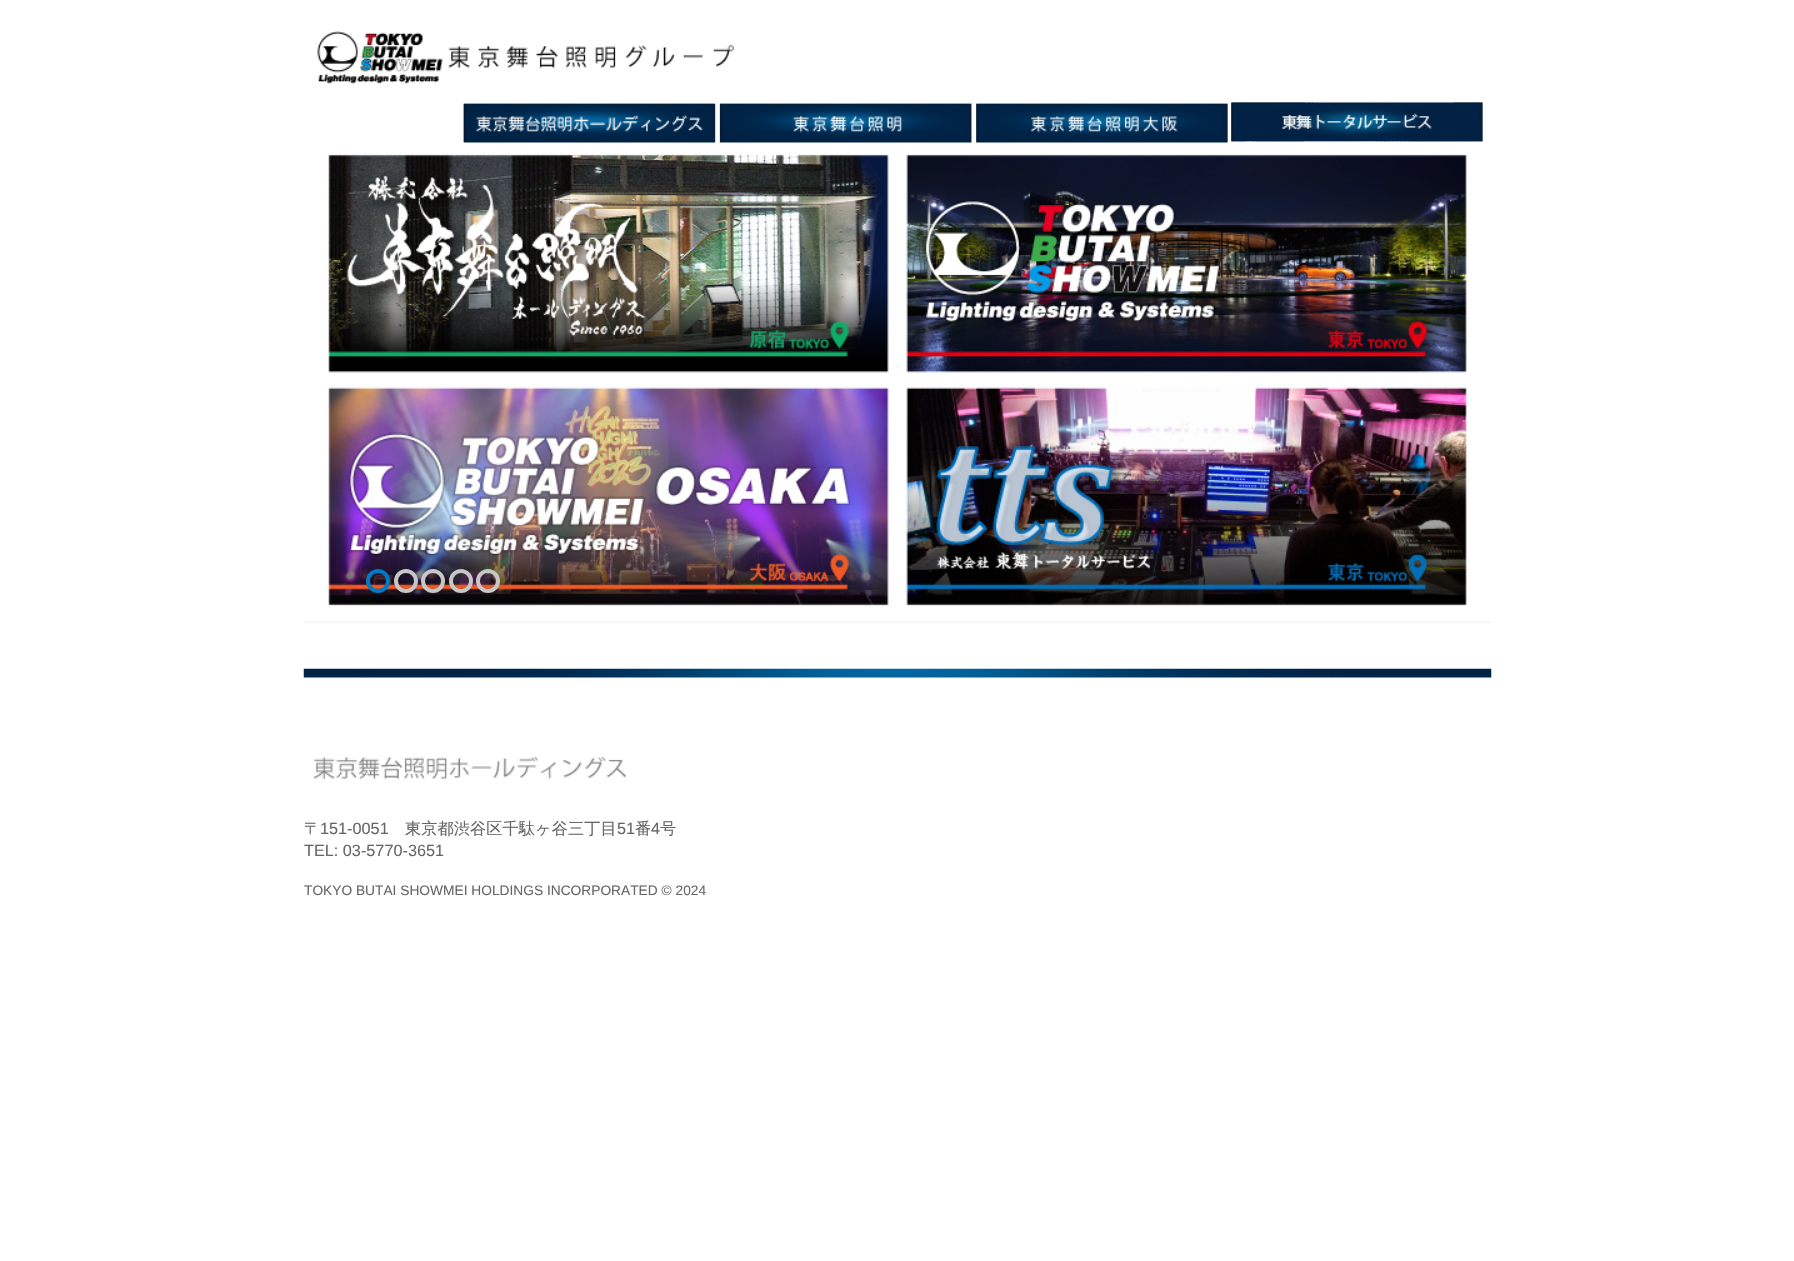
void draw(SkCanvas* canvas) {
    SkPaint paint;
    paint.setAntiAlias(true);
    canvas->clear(0xFFFFFFFF);
    canvas->drawImageRect(SkImages::DeferredFromEncodedData(SkData::MakeFromFileName("img1.png")), SkRect::MakeXYWH(317, 31, 417, 53), SkSamplingOptions());
    canvas->drawImageRect(SkImages::DeferredFromEncodedData(SkData::MakeFromFileName("img2.png")), SkRect::MakeXYWH(463, 103, 253, 40), SkSamplingOptions());
    canvas->drawImageRect(SkImages::DeferredFromEncodedData(SkData::MakeFromFileName("img3.png")), SkRect::MakeXYWH(463, 103, 253, 40), SkSamplingOptions());
    canvas->drawImageRect(SkImages::DeferredFromEncodedData(SkData::MakeFromFileName("img4.png")), SkRect::MakeXYWH(719, 103, 253, 40), SkSamplingOptions());
    canvas->drawImageRect(SkImages::DeferredFromEncodedData(SkData::MakeFromFileName("img5.png")), SkRect::MakeXYWH(719, 103, 253, 40), SkSamplingOptions());
    canvas->drawImageRect(SkImages::DeferredFromEncodedData(SkData::MakeFromFileName("img6.png")), SkRect::MakeXYWH(976, 103, 252, 40), SkSamplingOptions());
    canvas->drawImageRect(SkImages::DeferredFromEncodedData(SkData::MakeFromFileName("img7.png")), SkRect::MakeXYWH(976, 103, 252, 40), SkSamplingOptions());
    canvas->drawImageRect(SkImages::DeferredFromEncodedData(SkData::MakeFromFileName("img8.png")), SkRect::MakeXYWH(1231, 101, 252, 42), SkSamplingOptions());
    canvas->drawImageRect(SkImages::DeferredFromEncodedData(SkData::MakeFromFileName("img9.png")), SkRect::MakeXYWH(1231, 102, 252, 40), SkSamplingOptions());
    canvas->drawImageRect(SkImages::DeferredFromEncodedData(SkData::MakeFromFileName("img10.png")), SkRect::MakeXYWH(304, 621, 1187, 2), SkSamplingOptions());
    canvas->drawImageRect(SkImages::DeferredFromEncodedData(SkData::MakeFromFileName("img11.png")), SkRect::MakeXYWH(324, 142, 1143, 464), SkSamplingOptions());
    paint.setStyle(SkPaint::kStroke_Style);
    paint.setStrokeWidth(4);
    paint.setColor(0xFF007AC4);
    canvas->drawCircle(378, 581, 10, paint);
    paint.setColor(0xFFC6C6C6);
    canvas->drawCircle(406, 581, 10, paint);
    canvas->drawCircle(433, 581, 10, paint);
    canvas->drawCircle(461, 581, 10, paint);
    canvas->drawCircle(488, 581, 10, paint);
    canvas->drawImageRect(SkImages::DeferredFromEncodedData(SkData::MakeFromFileName("img12.png")), SkRect::MakeXYWH(303, 668, 1189, 10), SkSamplingOptions());
    canvas->drawImageRect(SkImages::DeferredFromEncodedData(SkData::MakeFromFileName("img13.png")), SkRect::MakeXYWH(313, 756, 314, 23), SkSamplingOptions());
    SkFont font1(fontMgr->matchFamilyStyle("WenQuanYi Zen Hei", SkFontStyle(500, SkFontStyle::kNormal_Width, SkFontStyle::kUpright_Slant)), 16.25f);
    font1.setSubpixel(true);
    paint.setStyle(SkPaint::kFill_Style);
    paint.setColor(0xFF666666);
    canvas->drawString("〒", 304, 834, font1, paint);
    SkFont font2(fontMgr->matchFamilyStyle("Liberation Sans", SkFontStyle::Normal()), 16.25f);
    font2.setSubpixel(true);
    canvas->drawString("151-0051", 320, 834, font2, paint);
    canvas->drawString("東京都渋谷区千駄ヶ谷三丁目", 405, 834, font1, paint);
    canvas->drawString("51", 617, 834, font2, paint);
    canvas->drawString("番", 635, 834, font1, paint);
    canvas->drawString("4", 651, 834, font2, paint);
    canvas->drawString("号", 660, 834, font1, paint);
    canvas->drawString("TEL: 03-5770-3651", 304, 856, font2, paint);
    SkFont font3(fontMgr->matchFamilyStyle("Liberation Sans", SkFontStyle::Normal()), 13.75f);
    font3.setSubpixel(true);
    canvas->drawString("TOKYO BUTAI SHOWMEI HOLDINGS INCORPORATED © 2024", 304, 895, font3, paint);
}
